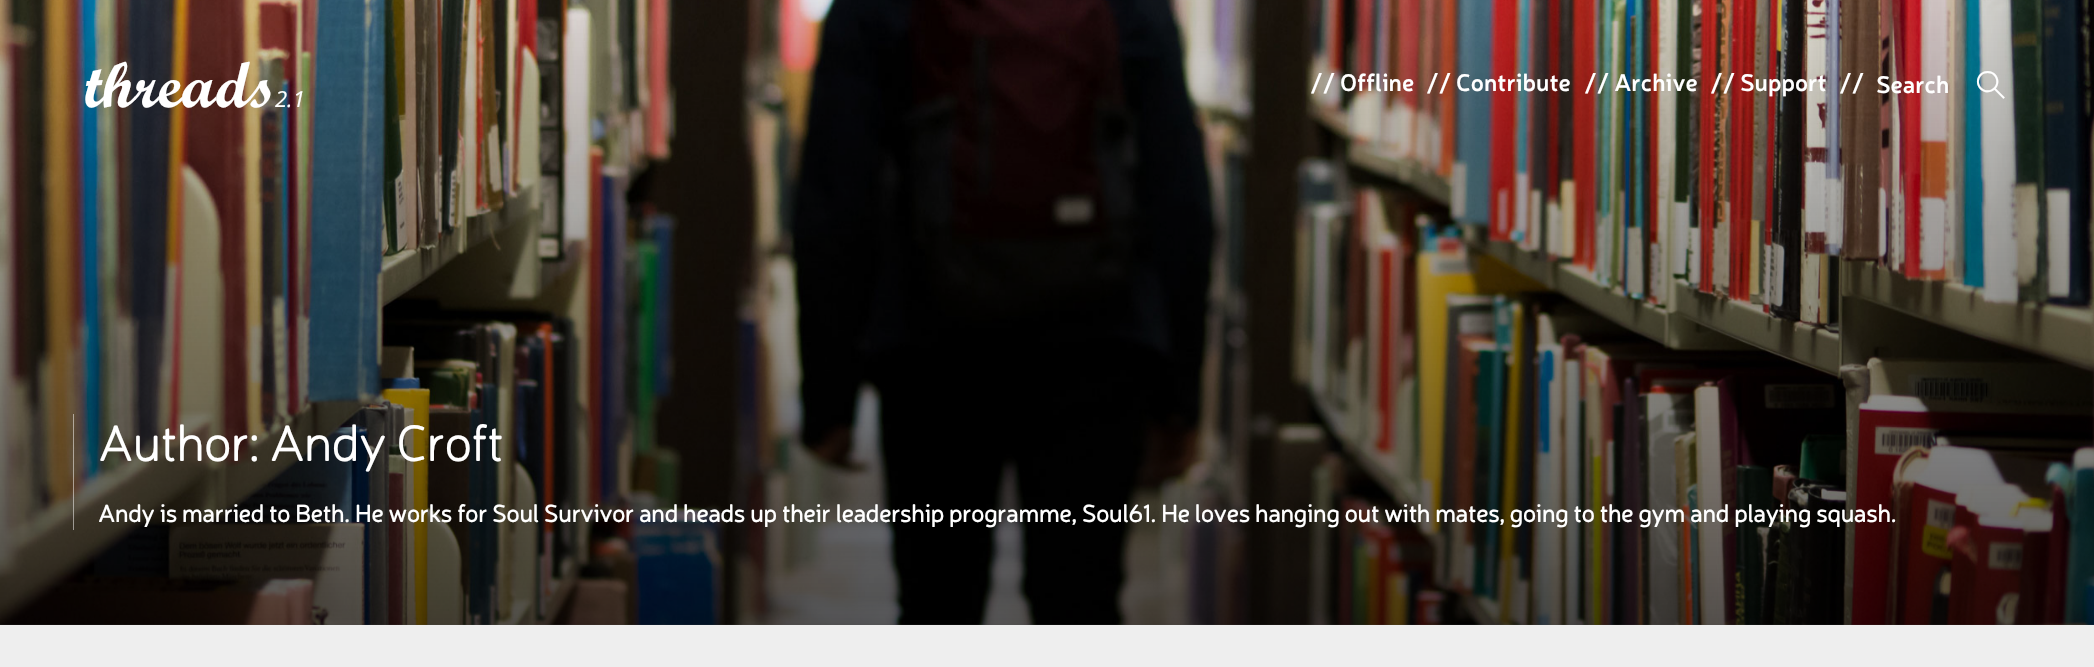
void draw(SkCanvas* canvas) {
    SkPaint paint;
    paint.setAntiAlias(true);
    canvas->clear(0xFFFFFFFF);
    canvas->drawImageRect(SkImages::DeferredFromEncodedData(SkData::MakeFromFileName("img1.png")), SkRect::MakeXYWH(0, 0, 2094, 625), SkSamplingOptions());
    {
        const SkColor colors[] = {0x1A000000, 0xA6000000};
        const float stops[] = {0, 1};
        const SkPoint ends[] = {{1048, 0}, {1048, 625}};
        paint.setShader(SkGradientShader::MakeLinear(ends, colors, stops, 2, SkTileMode::kClamp));
        paint.setAlpha(255);
    }
    canvas->drawRect(SkRect::MakeXYWH(0, 0, 2094, 625), paint);
    SkFont font1(fontMgr->matchFamilyStyle("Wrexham", SkFontStyle::Normal()), 65);
    font1.setSubpixel(true);
    paint.setShader(nullptr);
    paint.setColor(0xFFFFFFFF);
    canvas->drawString("threads", 85, 107, font1, paint);
    SkFont font2(fontMgr->matchFamilyStyle("Open Sans", SkFontStyle::Italic()), 22);
    font2.setSubpixel(true);
    canvas->drawString("2.1", 275, 107, font2, paint);
    SkFont font3(fontMgr->matchFamilyStyle("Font", SkFontStyle(600, SkFontStyle::kNormal_Width, SkFontStyle::kUpright_Slant)), 24);
    font3.setSubpixel(true);
    canvas->drawString("// Offline", 1310, 91, font3, paint);
    canvas->drawString("// Contribute", 1426, 91, font3, paint);
    canvas->drawString("// Archive", 1584, 91, font3, paint);
    canvas->drawString("// Support", 1710, 91, font3, paint);
    canvas->drawString("//", 1839, 91, font3, paint);
    canvas->drawString("Search", 1876, 93, font3, paint);
    SkFont font4(fontMgr->matchFamilyStyle("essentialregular", SkFontStyle::Normal()), 31);
    font4.setSubpixel(true);
    canvas->drawString("W", 1976, 101, font4, paint);
    paint.setColor(0x80FFFFFF);
    canvas->drawRect(SkRect::MakeXYWH(73, 414, 1, 52), paint);
    SkFont font5(fontMgr->matchFamilyStyle("Font", SkFontStyle::Bold()), 50);
    font5.setSubpixel(true);
    paint.setColor(0xFFFFFFFF);
    canvas->drawString("Author: Andy Croft", 98, 461, font5, paint);
    paint.setColor(0x80FFFFFF);
    canvas->drawRect(SkRect::MakeXYWH(73, 466, 1, 64), paint);
    SkFont font6(fontMgr->matchFamilyStyle("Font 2", SkFontStyle::Bold()), 24);
    font6.setSubpixel(true);
    paint.setColor(0xFFFFFFFF);
    canvas->drawString("Andy is married to Beth. He works for Soul Survivor and heads up their leadership programme, Soul61. He loves hanging out with mates, going to the gym and playing squash.", 98, 522, font6, paint);
    paint.setColor(0xFFEEEEEE);
    canvas->drawRect(SkRect::MakeXYWH(0, 625, 2094, 42), paint);
}
